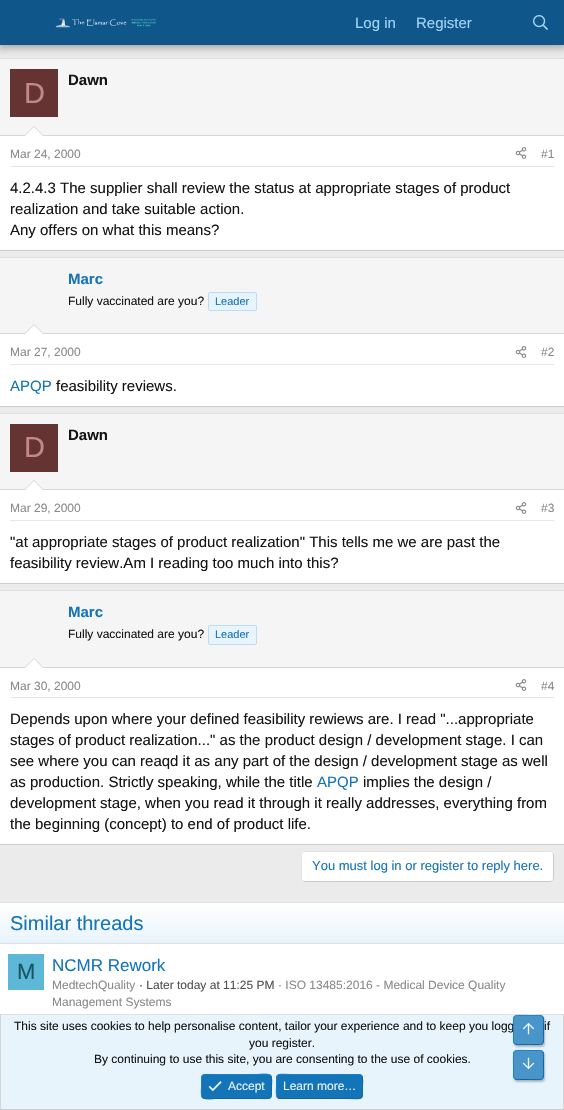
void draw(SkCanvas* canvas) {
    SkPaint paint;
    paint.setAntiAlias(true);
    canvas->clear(0xFFEBEBEB);
    paint.setColor(0xFFE0E0E0);
    canvas->drawRect(SkRect::MakeXYWH(0, 58, 564, 1), paint);
    paint.setColor(0xFFF5F5F5);
    canvas->drawRect(SkRect::MakeXYWH(0, 59, 564, 76), paint);
    paint.setColor(0x4D000000);
    paint.setMaskFilter(SkMaskFilter::MakeBlur(kNormal_SkBlurStyle, 4));
    canvas->drawRect(SkRect::MakeXYWH(-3, -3, 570, 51), paint);
    paint.setMaskFilter(nullptr);
    paint.setColor(0xFF0F578A);
    canvas->drawRect(SkRect::MakeXYWH(0, 0, 564, 45), paint);
    canvas->drawImageRect(SkImages::DeferredFromEncodedData(SkData::MakeFromFileName("img1.png")), SkRect::MakeXYWH(55, 17, 101, 11), SkSamplingOptions());
    SkFont font1(fontMgr->matchFamilyStyle("Liberation Sans", SkFontStyle::Normal()), 15);
    font1.setSubpixel(true);
    paint.setColor(0xFFA3D4F5);
    canvas->drawString("Log in", 355, 28, font1, paint);
    canvas->drawString("Register", 416, 28, font1, paint);
    canvas->drawImageRect(SkImages::DeferredFromEncodedData(SkData::MakeFromFileName("img2.png")), SkRect::MakeXYWH(533, 15, 15, 15), SkSamplingOptions());
    paint.setColor(0xFFFFFFFF);
    canvas->drawRect(SkRect::MakeXYWH(0, 136, 564, 114), paint);
    paint.setColor(0xFFCCCCCC);
    canvas->drawRect(SkRect::MakeXYWH(0, 250, 564, 1), paint);
    paint.setColor(0xFFD6D6D6);
    canvas->drawRect(SkRect::MakeXYWH(0, 135, 564, 1), paint);
    SkFont font2(fontMgr->matchFamilyStyle("Liberation Sans", SkFontStyle::Bold()), 15);
    font2.setSubpixel(true);
    paint.setColor(0xFF141414);
    canvas->drawString("Dawn", 68, 85, font2, paint);
    paint.setColor(0xFF663333);
    canvas->drawRect(SkRect::MakeXYWH(10, 69, 48, 48), paint);
    SkFont font3(fontMgr->matchFamilyStyle("Liberation Sans", SkFontStyle::Normal()), 29);
    font3.setSubpixel(true);
    paint.setColor(0xFFC38888);
    canvas->drawString("D", 24, 103, font3, paint);
    paint.setColor(0xFFD6D6D6);
    canvas->drawPath(SkPathBuilder().moveTo(44, 136).lineTo(24, 136).lineTo(34, 126).close().detach(), paint);
    paint.setColor(0xFFFFFFFF);
    canvas->drawPath(SkPathBuilder().moveTo(43, 136).lineTo(25, 136).lineTo(34, 127).close().detach(), paint);
    paint.setColor(0xFFE6E6E6);
    canvas->drawRect(SkRect::MakeXYWH(10, 166, 544, 1), paint);
    SkFont font4(fontMgr->matchFamilyStyle("Liberation Sans", SkFontStyle::Normal()), 12);
    font4.setSubpixel(true);
    paint.setColor(0xFF8A8A8A);
    canvas->drawString("Mar 24, 2000", 10, 158, font4, paint);
    canvas->drawImageRect(SkImages::DeferredFromEncodedData(SkData::MakeFromFileName("img3.png")), SkRect::MakeXYWH(515, 147, 12, 12), SkSamplingOptions());
    canvas->drawString("#1", 541, 158, font4, paint);
    paint.setColor(0xFF141414);
    canvas->drawString("4.2.4.3 The supplier shall review the status at appropriate stages of product", 10, 193, font1, paint);
    canvas->drawString("realization and take suitable action.", 10, 214, font1, paint);
    canvas->drawString("Any offers on what this means?", 10, 235, font1, paint);
    paint.setColor(0xFFFFFFFF);
    canvas->drawRect(SkRect::MakeXYWH(0, 334, 564, 72), paint);
    paint.setColor(0xFFE0E0E0);
    canvas->drawRect(SkRect::MakeXYWH(0, 257, 564, 1), paint);
    paint.setColor(0xFFCCCCCC);
    canvas->drawRect(SkRect::MakeXYWH(0, 406, 564, 1), paint);
    paint.setColor(0xFFF5F5F5);
    canvas->drawRect(SkRect::MakeXYWH(0, 258, 564, 75), paint);
    paint.setColor(0xFFD6D6D6);
    canvas->drawRect(SkRect::MakeXYWH(0, 333, 564, 1), paint);
    paint.setColor(0xFF1474B8);
    canvas->drawString("Marc", 68, 284, font2, paint);
    paint.setColor(0xFF141414);
    canvas->drawString("Fully vaccinated are you?", 68, 305, font4, paint);
    paint.setColor(0xFFE8F4FC);
    canvas->drawRoundRect(SkRect::MakeXYWH(208.5f, 292.5f, 48, 18), 1.5f, 1.5f, paint);
    paint.setStyle(SkPaint::kStroke_Style);
    paint.setStrokeWidth(1);
    paint.setColor(0xFFBADDF7);
    canvas->drawRoundRect(SkRect::MakeXYWH(208.5f, 292.5f, 48, 18), 1.5f, 1.5f, paint);
    SkFont font5(fontMgr->matchFamilyStyle("Liberation Sans", SkFontStyle::Normal()), 11);
    font5.setSubpixel(true);
    paint.setStyle(SkPaint::kFill_Style);
    paint.setColor(0xFF1474B8);
    canvas->drawString("Leader", 215, 305, font5, paint);
    paint.setColor(0xFFD6D6D6);
    canvas->drawPath(SkPathBuilder().moveTo(44, 334).lineTo(24, 334).lineTo(34, 324).close().detach(), paint);
    paint.setColor(0xFFFFFFFF);
    canvas->drawPath(SkPathBuilder().moveTo(43, 334).lineTo(25, 334).lineTo(34, 325).close().detach(), paint);
    paint.setColor(0xFFE6E6E6);
    canvas->drawRect(SkRect::MakeXYWH(10, 364, 544, 1), paint);
    paint.setColor(0xFF8A8A8A);
    canvas->drawString("Mar 27, 2000", 10, 356, font4, paint);
    canvas->drawImageRect(SkImages::DeferredFromEncodedData(SkData::MakeFromFileName("img3.png")), SkRect::MakeXYWH(515, 346, 12, 12), SkSamplingOptions());
    canvas->drawString("#2", 541, 356, font4, paint);
    paint.setColor(0xFF1474B8);
    canvas->drawString("APQP", 10, 391, font1, paint);
    paint.setColor(0xFF141414);
    canvas->drawString("feasibility reviews.", 56, 391, font1, paint);
    paint.setColor(0xFFFFFFFF);
    canvas->drawRect(SkRect::MakeXYWH(0, 490, 564, 93), paint);
    paint.setColor(0xFFE0E0E0);
    canvas->drawRect(SkRect::MakeXYWH(0, 413, 564, 1), paint);
    paint.setColor(0xFFCCCCCC);
    canvas->drawRect(SkRect::MakeXYWH(0, 583, 564, 1), paint);
    paint.setColor(0xFFF5F5F5);
    canvas->drawRect(SkRect::MakeXYWH(0, 414, 564, 75), paint);
    paint.setColor(0xFFD6D6D6);
    canvas->drawRect(SkRect::MakeXYWH(0, 489, 564, 1), paint);
    paint.setColor(0xFF141414);
    canvas->drawString("Dawn", 68, 440, font2, paint);
    paint.setColor(0xFF663333);
    canvas->drawRect(SkRect::MakeXYWH(10, 424, 48, 48), paint);
    paint.setColor(0xFFC38888);
    canvas->drawString("D", 24, 457, font3, paint);
    paint.setColor(0xFFD6D6D6);
    canvas->drawPath(SkPathBuilder().moveTo(44, 490).lineTo(24, 490).lineTo(34, 480).close().detach(), paint);
    paint.setColor(0xFFFFFFFF);
    canvas->drawPath(SkPathBuilder().moveTo(43, 490).lineTo(25, 490).lineTo(34, 481).close().detach(), paint);
    paint.setColor(0xFFE6E6E6);
    canvas->drawRect(SkRect::MakeXYWH(10, 520, 544, 1), paint);
    paint.setColor(0xFF8A8A8A);
    canvas->drawString("Mar 29, 2000", 10, 512, font4, paint);
    canvas->drawImageRect(SkImages::DeferredFromEncodedData(SkData::MakeFromFileName("img3.png")), SkRect::MakeXYWH(515, 502, 12, 12), SkSamplingOptions());
    canvas->drawString("#3", 541, 512, font4, paint);
    paint.setColor(0xFF141414);
    canvas->drawString("\"at appropriate stages of product realization\" This tells me we are past the", 10, 547, font1, paint);
    canvas->drawString("feasibility review.Am I reading too much into this?", 10, 568, font1, paint);
    paint.setColor(0xFFFFFFFF);
    canvas->drawRect(SkRect::MakeXYWH(0, 668, 564, 176), paint);
    paint.setColor(0xFFE0E0E0);
    canvas->drawRect(SkRect::MakeXYWH(0, 590, 564, 1), paint);
    paint.setColor(0xFFCCCCCC);
    canvas->drawRect(SkRect::MakeXYWH(0, 844, 564, 1), paint);
    paint.setColor(0xFFF5F5F5);
    canvas->drawRect(SkRect::MakeXYWH(0, 591, 564, 76), paint);
    paint.setColor(0xFFD6D6D6);
    canvas->drawRect(SkRect::MakeXYWH(0, 667, 564, 1), paint);
    paint.setColor(0xFF1474B8);
    canvas->drawString("Marc", 68, 617, font2, paint);
    paint.setColor(0xFF141414);
    canvas->drawString("Fully vaccinated are you?", 68, 638, font4, paint);
    paint.setColor(0xFFE8F4FC);
    canvas->drawRoundRect(SkRect::MakeXYWH(208.5f, 625.5f, 48, 19), 1.5f, 1.5f, paint);
    paint.setStyle(SkPaint::kStroke_Style);
    paint.setColor(0xFFBADDF7);
    canvas->drawRoundRect(SkRect::MakeXYWH(208.5f, 625.5f, 48, 19), 1.5f, 1.5f, paint);
    paint.setStyle(SkPaint::kFill_Style);
    paint.setColor(0xFF1474B8);
    canvas->drawString("Leader", 215, 638, font5, paint);
    paint.setColor(0xFFD6D6D6);
    canvas->drawPath(SkPathBuilder().moveTo(44, 668).lineTo(24, 668).lineTo(34, 658).close().detach(), paint);
    paint.setColor(0xFFFFFFFF);
    canvas->drawPath(SkPathBuilder().moveTo(43, 668).lineTo(25, 668).lineTo(34, 659).close().detach(), paint);
    paint.setColor(0xFFE6E6E6);
    canvas->drawRect(SkRect::MakeXYWH(10, 697, 544, 1), paint);
    paint.setColor(0xFF8A8A8A);
    canvas->drawString("Mar 30, 2000", 10, 690, font4, paint);
    canvas->drawImageRect(SkImages::DeferredFromEncodedData(SkData::MakeFromFileName("img3.png")), SkRect::MakeXYWH(515, 679, 12, 12), SkSamplingOptions());
    canvas->drawString("#4", 541, 690, font4, paint);
    paint.setColor(0xFF141414);
    canvas->drawString("Depends upon where your defined feasibility rewiews are. I read \"...appropriate", 10, 724, font1, paint);
    canvas->drawString("stages of product realization...\" as the product design / development stage. I can", 10, 745, font1, paint);
    canvas->drawString("see where you can reaqd it as any part of the design / development stage as well", 10, 766, font1, paint);
    canvas->drawString("as production. Strictly speaking, while the title", 10, 787, font1, paint);
    paint.setColor(0xFF1474B8);
    canvas->drawString("APQP", 317, 787, font1, paint);
    paint.setColor(0xFF141414);
    canvas->drawString("implies the design /", 363, 787, font1, paint);
    canvas->drawString("development stage, when you read it through it really addresses, everything from", 10, 808, font1, paint);
    canvas->drawString("the beginning (concept) to end of product life.", 10, 829, font1, paint);
    paint.setColor(0xFFFFFFFF);
    canvas->drawRoundRect(SkRect::MakeXYWH(301, 851, 253, 31), 4, 4, paint);
    paint.setStyle(SkPaint::kStroke_Style);
    paint.setColor(0xFFC9C9C9);
    canvas->drawPath(SkPathBuilder().moveTo(552.5f, 852.5f).cubicTo(553, 853, 553.5f, 854, 553.5f, 855).lineTo(553.5f, 878).cubicTo(553.5f, 879, 553, 880, 552.5f, 880.5f).cubicTo(552, 881, 551, 881.5f, 550, 881.5f).lineTo(305, 881.5f).cubicTo(304, 881.5f, 303, 881, 302.5f, 880.5f).detach(), paint);
    paint.setColor(0xFFE3E3E3);
    canvas->drawPath(SkPathBuilder().moveTo(302.5f, 880.5f).cubicTo(302, 880, 301.5f, 879, 301.5f, 878).lineTo(301.5f, 855).cubicTo(301.5f, 854, 302, 853, 302.5f, 852.5f).cubicTo(303, 852, 304, 851.5f, 305, 851.5f).lineTo(550, 851.5f).cubicTo(551, 851.5f, 552, 852, 552.5f, 852.5f).detach(), paint);
    SkFont font6(fontMgr->matchFamilyStyle("Liberation Sans", SkFontStyle::Normal()), 13);
    font6.setSubpixel(true);
    paint.setStyle(SkPaint::kFill_Style);
    paint.setColor(0xFF1474B8);
    canvas->drawString("You must log in or register to reply here.", 312, 870, font6, paint);
    paint.setColor(0xFFFFFFFF);
    canvas->drawRect(SkRect::MakeXYWH(0, 944, 564, 70), paint);
    paint.setColor(0xFFE0E0E0);
    canvas->drawRect(SkRect::MakeXYWH(0, 902, 564, 1), paint);
    {
        const SkColor colors[] = {0xFFE8F4FC, 0xFFFFFFFF};
        const float stops[] = {0, 1};
        const SkPoint ends[] = {{282, 943}, {282, 903}};
        paint.setShader(SkGradientShader::MakeLinear(ends, colors, stops, 2, SkTileMode::kClamp));
        paint.setAlpha(255);
    }
    canvas->drawRect(SkRect::MakeXYWH(0, 903, 564, 40), paint);
    paint.setShader(nullptr);
    paint.setColor(0xFFE0E0E0);
    canvas->drawRect(SkRect::MakeXYWH(0, 943, 564, 1), paint);
    SkFont font7(fontMgr->matchFamilyStyle("Liberation Sans", SkFontStyle::Normal()), 20);
    font7.setSubpixel(true);
    paint.setColor(0xFF1474B8);
    canvas->drawString("Similar threads", 10, 930, font7, paint);
    paint.setColor(0xFF5CB8D6);
    canvas->drawRect(SkRect::MakeXYWH(8, 954, 36, 36), paint);
    SkFont font8(fontMgr->matchFamilyStyle("Liberation Sans", SkFontStyle::Normal()), 22);
    font8.setSubpixel(true);
    paint.setColor(0xFF1A5366);
    canvas->drawString("M", 17, 979, font8, paint);
    SkFont font9(fontMgr->matchFamilyStyle("Liberation Sans", SkFontStyle::Normal()), 17);
    font9.setSubpixel(true);
    paint.setColor(0xFF1474B8);
    canvas->drawString("NCMR Rework", 52, 971, font9, paint);
    paint.setColor(0xFF8A8A8A);
    canvas->drawString("MedtechQuality", 52, 989, font4, paint);
    paint.setColor(0xFF4F4F4F);
    canvas->drawString("· Later today at 11:25 PM", 139, 989, font4, paint);
    paint.setColor(0xFF8A8A8A);
    canvas->drawString("· ISO 13485:2016 - Medical Device Quality", 278, 989, font4, paint);
    canvas->drawString("Management Systems", 52, 1006, font4, paint);
    paint.setColor(0xFFE8F4FC);
    canvas->drawRect(SkRect::MakeXYWH(1, 1015, 562, 94), paint);
    paint.setColor(0xFFE0E0E0);
    canvas->drawRect(SkRect::MakeXYWH(0, 1014, 564, 1), paint);
    canvas->save();
    canvas->clipPath(SkPathBuilder(SkPathFillType::kEvenOdd).moveTo(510, 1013).lineTo(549, 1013).lineTo(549, 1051).lineTo(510, 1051).close().moveTo(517, 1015).lineTo(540, 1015).cubicTo(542, 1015, 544, 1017, 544, 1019).lineTo(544, 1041).cubicTo(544, 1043, 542, 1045, 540, 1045).lineTo(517, 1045).cubicTo(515, 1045, 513, 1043, 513, 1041).lineTo(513, 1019).cubicTo(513, 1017, 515, 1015, 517, 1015).close().detach(), true);
    paint.setColor(0x40000000);
    paint.setMaskFilter(SkMaskFilter::MakeBlur(kNormal_SkBlurStyle, 1));
    canvas->drawRoundRect(SkRect::MakeXYWH(514, 1017, 31, 30), 4, 4, paint);
    paint.setMaskFilter(nullptr);
    canvas->restore();
    paint.setColor(0xFF141414);
    canvas->drawString("This site uses cookies to help personalise content, tailor your experience and to keep you logg", 14, 1030, font4, paint);
    paint.setColor(0xBF1474B8);
    canvas->drawRoundRect(SkRect::MakeXYWH(513, 1015, 31, 30), 4, 4, paint);
    paint.setColor(0xFF141414);
    canvas->drawString("if", 544, 1030, font4, paint);
    paint.setStyle(SkPaint::kStroke_Style);
    paint.setColor(0xFF1265A1);
    canvas->drawPath(SkPathBuilder().moveTo(542.5f, 1016.5f).cubicTo(544, 1018, 543.5f, 1021, 543.5f, 1022.5f).lineTo(543.5f, 1030).cubicTo(543.5f, 1047, 545.5f, 1044.5f, 528.5f, 1044.5f).lineTo(521, 1044.5f).cubicTo(519, 1044.5f, 516, 1045, 514.5f, 1043.5f).detach(), paint);
    paint.setColor(0xFF1782CF);
    canvas->drawPath(SkPathBuilder().moveTo(514.5f, 1043.5f).cubicTo(513, 1042, 513.5f, 1039, 513.5f, 1037.5f).lineTo(513.5f, 1030).cubicTo(513.5f, 1013, 511.5f, 1015.5f, 528.5f, 1015.5f).lineTo(536, 1015.5f).cubicTo(538, 1015.5f, 541, 1015, 542.5f, 1016.5f).detach(), paint);
    canvas->drawImageRect(SkImages::DeferredFromEncodedData(SkData::MakeFromFileName("img4.png")), SkRect::MakeXYWH(522, 1022, 13, 13), SkSamplingOptions());
    canvas->save();
    canvas->clipPath(SkPathBuilder(SkPathFillType::kEvenOdd).moveTo(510, 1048).lineTo(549, 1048).lineTo(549, 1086).lineTo(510, 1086).close().moveTo(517, 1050).lineTo(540, 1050).cubicTo(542, 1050, 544, 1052, 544, 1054).lineTo(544, 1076).cubicTo(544, 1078, 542, 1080, 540, 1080).lineTo(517, 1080).cubicTo(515, 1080, 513, 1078, 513, 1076).lineTo(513, 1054).cubicTo(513, 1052, 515, 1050, 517, 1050).close().detach(), true);
    paint.setStyle(SkPaint::kFill_Style);
    paint.setColor(0x40000000);
    paint.setMaskFilter(SkMaskFilter::MakeBlur(kNormal_SkBlurStyle, 1));
    canvas->drawRoundRect(SkRect::MakeXYWH(514, 1052, 31, 30), 4, 4, paint);
    paint.setMaskFilter(nullptr);
    canvas->restore();
    paint.setColor(0xBF1474B8);
    canvas->drawRoundRect(SkRect::MakeXYWH(513, 1050, 31, 30), 4, 4, paint);
    paint.setStyle(SkPaint::kStroke_Style);
    paint.setColor(0xFF1265A1);
    canvas->drawPath(SkPathBuilder().moveTo(542.5f, 1051.5f).cubicTo(544, 1053, 543.5f, 1056, 543.5f, 1057.5f).lineTo(543.5f, 1065).cubicTo(543.5f, 1082, 545.5f, 1079.5f, 528.5f, 1079.5f).lineTo(521, 1079.5f).cubicTo(519, 1079.5f, 516, 1080, 514.5f, 1078.5f).detach(), paint);
    paint.setColor(0xFF1782CF);
    canvas->drawPath(SkPathBuilder().moveTo(514.5f, 1078.5f).cubicTo(513, 1077, 513.5f, 1074, 513.5f, 1072.5f).lineTo(513.5f, 1065).cubicTo(513.5f, 1048, 511.5f, 1050.5f, 528.5f, 1050.5f).lineTo(536, 1050.5f).cubicTo(538, 1050.5f, 541, 1050, 542.5f, 1051.5f).detach(), paint);
    canvas->drawImageRect(SkImages::DeferredFromEncodedData(SkData::MakeFromFileName("img5.png")), SkRect::MakeXYWH(522, 1057, 13, 13), SkSamplingOptions());
    paint.setStyle(SkPaint::kFill_Style);
    paint.setColor(0xFFD6D6D6);
    canvas->drawRect(SkRect::MakeXYWH(563, 1014, 1, 96), paint);
    paint.setColor(0xFFCCCCCC);
    canvas->drawRect(SkRect::MakeXYWH(0, 1109, 564, 1), paint);
    paint.setColor(0xFFD6D6D6);
    canvas->drawRect(SkRect::MakeXYWH(0, 1014, 1, 96), paint);
    paint.setColor(0xFF141414);
    canvas->drawString("you register.", 249, 1047, font4, paint);
    canvas->drawString("By continuing to use this site, you are consenting to the use of cookies.", 94, 1063, font4, paint);
    paint.setColor(0xFF1474B8);
    canvas->drawRoundRect(SkRect::MakeXYWH(201, 1074, 71, 25), 4, 4, paint);
    paint.setStyle(SkPaint::kStroke_Style);
    paint.setColor(0xFF1265A1);
    canvas->drawPath(SkPathBuilder().moveTo(270.5f, 1075.5f).cubicTo(272.5f, 1078, 271.5f, 1084, 271.5f, 1086.5f).cubicTo(271.5f, 1100.5f, 272.5f, 1098.5f, 257.5f, 1098.5f).lineTo(215.5f, 1098.5f).cubicTo(214.5f, 1098.5f, 205, 1100, 202.5f, 1097.5f).detach(), paint);
    paint.setColor(0xFF1782CF);
    canvas->drawPath(SkPathBuilder().moveTo(202.5f, 1097.5f).cubicTo(200.5f, 1095, 201.5f, 1089, 201.5f, 1086.5f).cubicTo(201.5f, 1072.5f, 200.5f, 1074.5f, 215.5f, 1074.5f).lineTo(257.5f, 1074.5f).cubicTo(258.5f, 1074.5f, 268, 1073, 270.5f, 1075.5f).detach(), paint);
    canvas->drawImageRect(SkImages::DeferredFromEncodedData(SkData::MakeFromFileName("img6.png")), SkRect::MakeXYWH(208, 1081, 14, 11), SkSamplingOptions());
    paint.setStyle(SkPaint::kFill_Style);
    paint.setColor(0xFFE8F4FC);
    canvas->drawString("Accept", 228, 1090, font4, paint);
    paint.setColor(0xFF1474B8);
    canvas->drawRoundRect(SkRect::MakeXYWH(276, 1074, 87, 25), 4, 4, paint);
    paint.setStyle(SkPaint::kStroke_Style);
    paint.setColor(0xFF1265A1);
    canvas->drawPath(SkPathBuilder().moveTo(361.5f, 1075.5f).cubicTo(363.5f, 1078, 362.5f, 1084, 362.5f, 1086.5f).cubicTo(362.5f, 1101.5f, 363, 1098.5f, 346, 1098.5f).lineTo(280, 1098.5f).lineTo(277.5f, 1097.5f).detach(), paint);
    paint.setColor(0xFF1782CF);
    canvas->drawPath(SkPathBuilder().moveTo(277.5f, 1097.5f).cubicTo(275.5f, 1095, 276.5f, 1089, 276.5f, 1086.5f).cubicTo(276.5f, 1071.5f, 276, 1074.5f, 293, 1074.5f).lineTo(359, 1074.5f).lineTo(361.5f, 1075.5f).detach(), paint);
    paint.setStyle(SkPaint::kFill_Style);
    paint.setColor(0xFFE8F4FC);
    canvas->drawString("Learn more…", 283, 1090, font4, paint);
}
